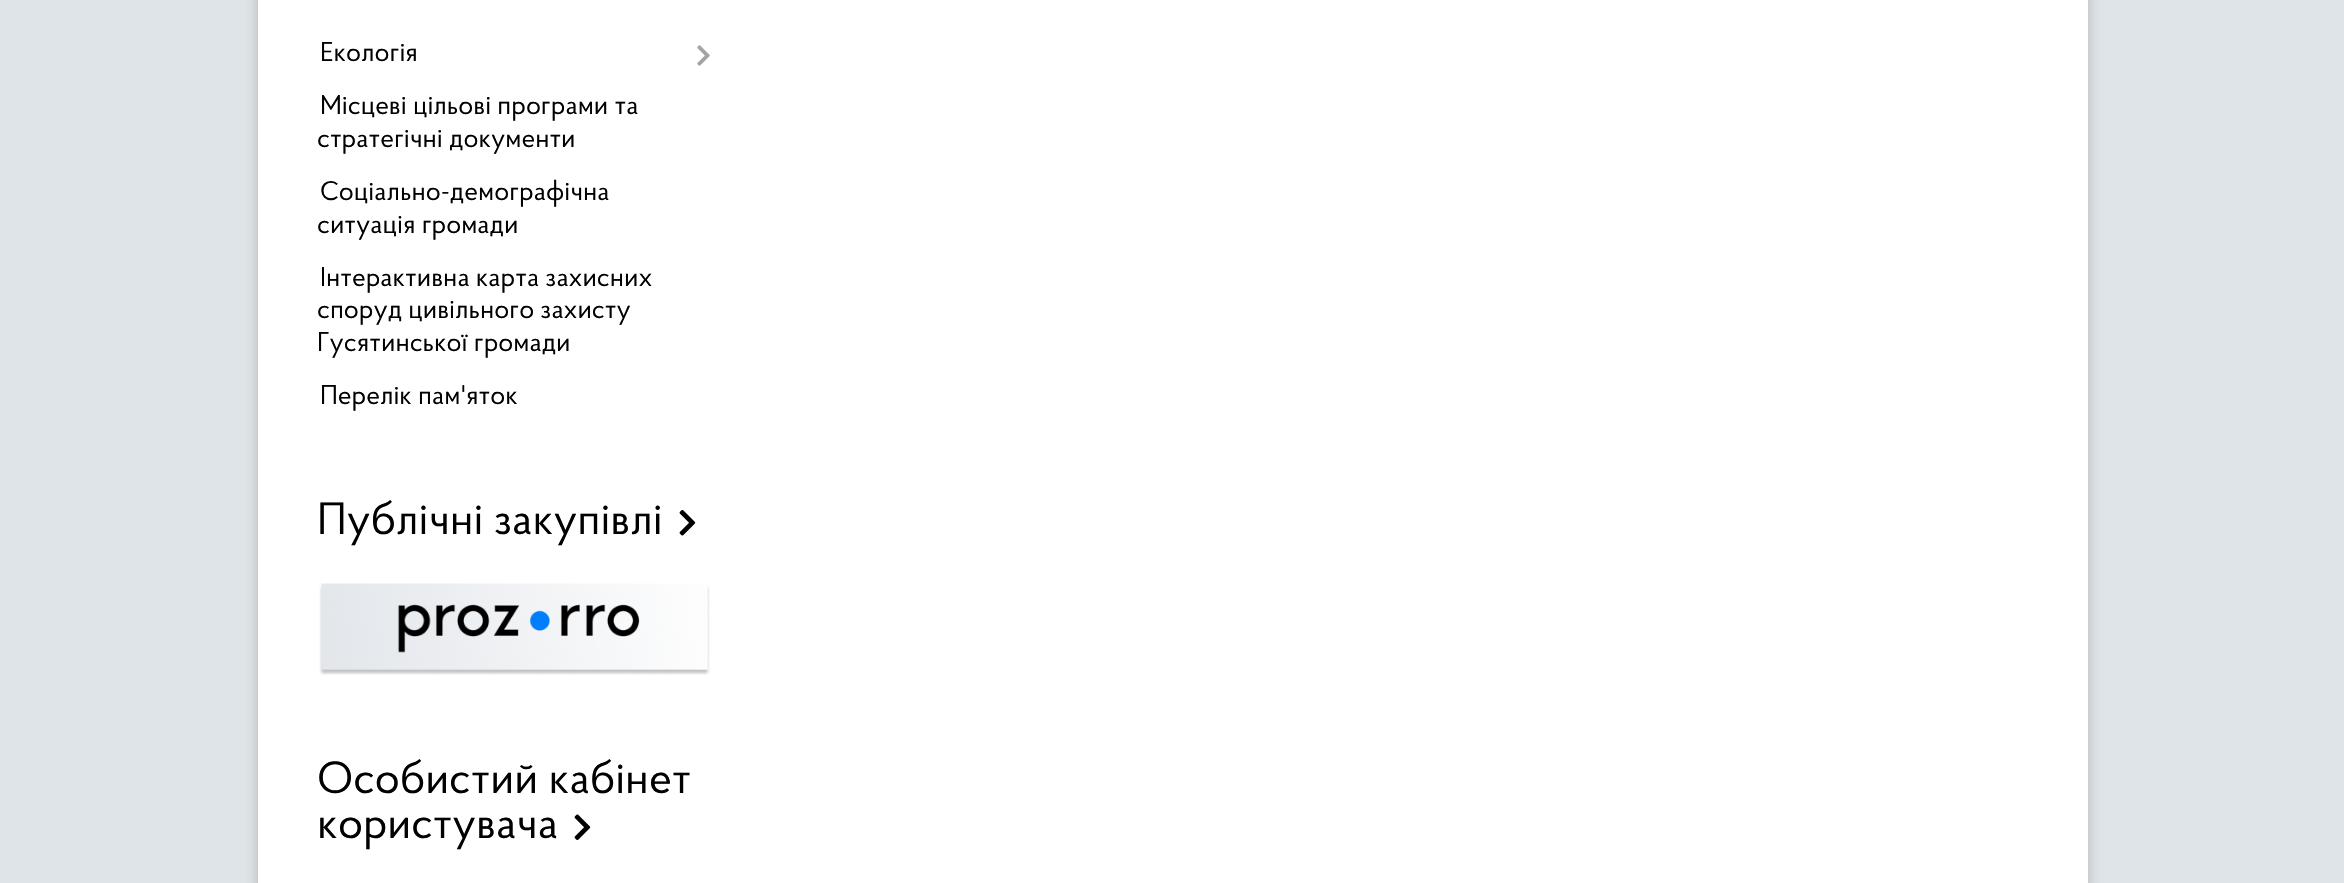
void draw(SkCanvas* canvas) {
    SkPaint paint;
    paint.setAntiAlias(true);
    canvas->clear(0xFFDEE4E7);
    paint.setColor(0x33000000);
    paint.setMaskFilter(SkMaskFilter::MakeBlur(kNormal_SkBlurStyle, 6));
    canvas->drawRect(SkRect::MakeXYWH(258, -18, 1830, 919), paint);
    paint.setMaskFilter(nullptr);
    paint.setColor(0xFFFFFFFF);
    canvas->drawRect(SkRect::MakeXYWH(258, 0, 1830, 883), paint);
    SkFont font1(fontMgr->matchFamilyStyle("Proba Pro", SkFontStyle::Normal()), 27);
    font1.setSubpixel(true);
    paint.setColor(0xFF000000);
    canvas->drawString("Екологія", 320, 61, font1, paint);
    canvas->drawImageRect(SkImages::DeferredFromEncodedData(SkData::MakeFromFileName("img1.png")), SkRect::MakeXYWH(697, 45, 13, 21), SkSamplingOptions());
    canvas->drawString("Місцеві цільові програми та", 320, 114, font1, paint);
    canvas->drawString("стратегічні документи", 317, 147, font1, paint);
    canvas->drawString("Соціально-демографічна", 320, 200, font1, paint);
    canvas->drawString("ситуація громади", 317, 233, font1, paint);
    canvas->drawString("Інтерактивна карта захисних", 320, 286, font1, paint);
    canvas->drawString("споруд цивільного захисту", 317, 318, font1, paint);
    canvas->drawString("Гусятинської громади", 317, 351, font1, paint);
    canvas->drawString("Перелік пам'яток", 320, 404, font1, paint);
    SkFont font2(fontMgr->matchFamilyStyle("Proba Pro", SkFontStyle::Normal()), 45);
    font2.setSubpixel(true);
    canvas->drawString("Публічні закупівлі", 317, 534, font2, paint);
    canvas->drawImageRect(SkImages::DeferredFromEncodedData(SkData::MakeFromFileName("img2.png")), SkRect::MakeXYWH(679, 510, 17, 26), SkSamplingOptions());
    canvas->drawImageRect(SkImages::DeferredFromEncodedData(SkData::MakeFromFileName("img3.png")), SkRect::MakeXYWH(319, 583, 391, 92), SkSamplingOptions());
    canvas->drawString("Особистий кабінет", 317, 793, font2, paint);
    canvas->drawString("користувача", 317, 838, font2, paint);
    canvas->drawImageRect(SkImages::DeferredFromEncodedData(SkData::MakeFromFileName("img4.png")), SkRect::MakeXYWH(574, 814, 17, 26), SkSamplingOptions());
}
